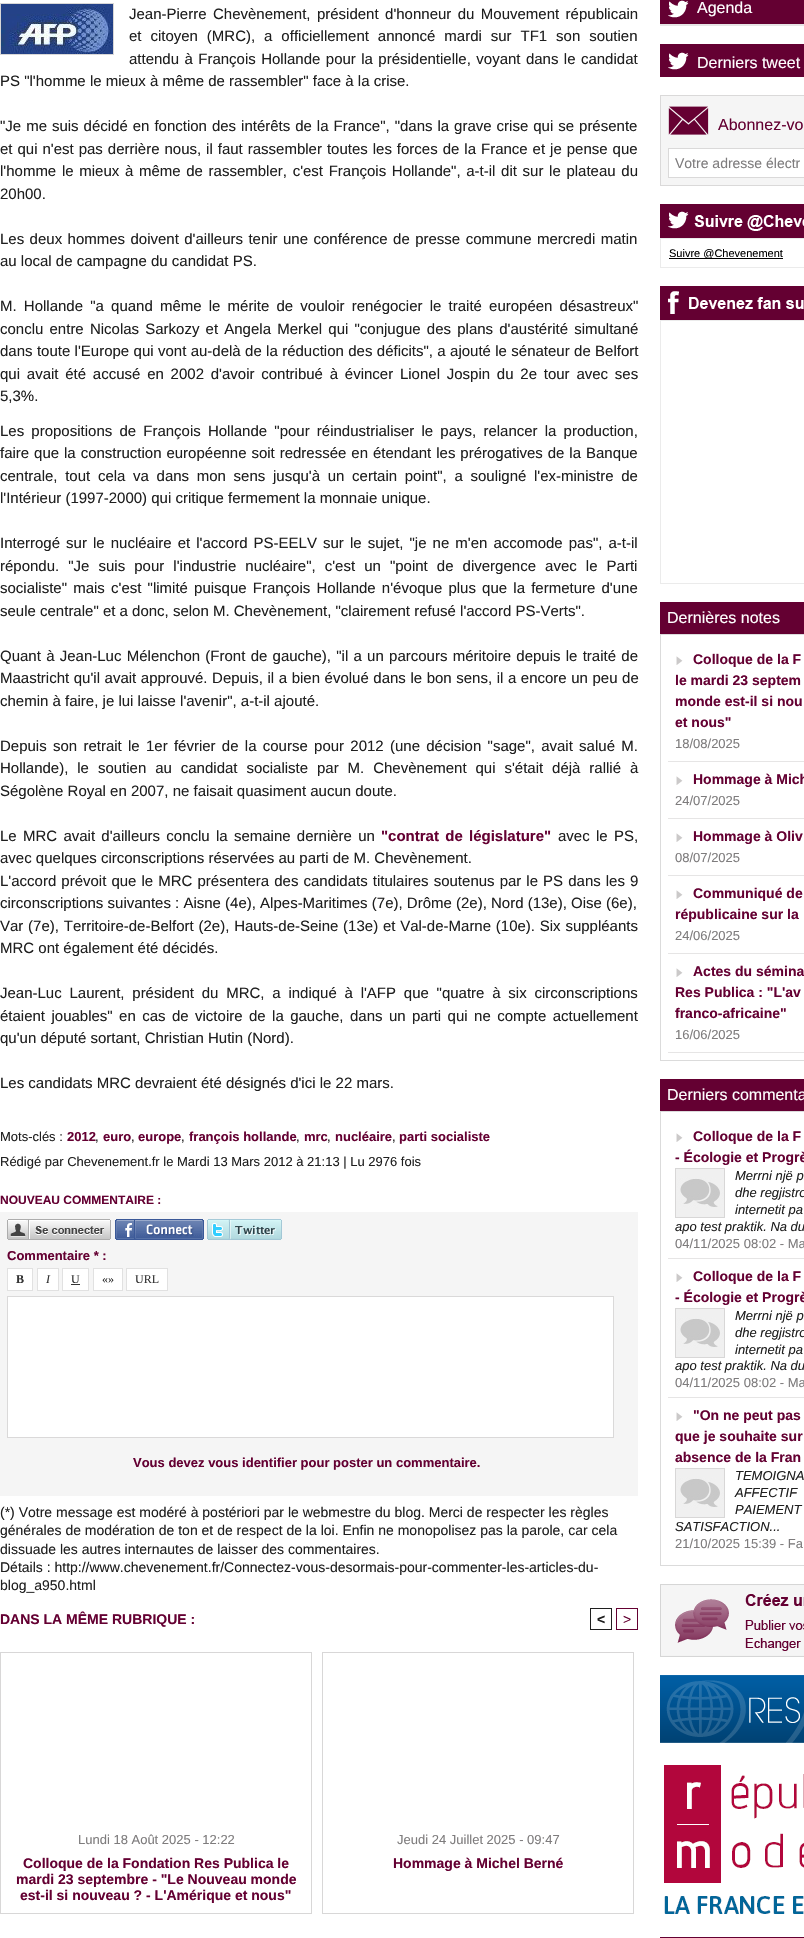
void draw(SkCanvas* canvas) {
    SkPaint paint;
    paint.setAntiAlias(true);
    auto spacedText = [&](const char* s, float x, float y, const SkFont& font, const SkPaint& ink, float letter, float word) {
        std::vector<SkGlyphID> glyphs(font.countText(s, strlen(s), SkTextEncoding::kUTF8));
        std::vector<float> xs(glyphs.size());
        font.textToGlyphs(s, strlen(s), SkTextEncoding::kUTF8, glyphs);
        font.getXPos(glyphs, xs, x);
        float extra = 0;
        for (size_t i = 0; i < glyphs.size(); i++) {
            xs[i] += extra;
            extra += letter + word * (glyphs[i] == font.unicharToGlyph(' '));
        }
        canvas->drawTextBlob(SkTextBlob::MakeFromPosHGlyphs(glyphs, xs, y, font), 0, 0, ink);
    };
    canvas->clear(0xFFFFFFFF);
    paint.setStyle(SkPaint::kStroke_Style);
    paint.setStrokeWidth(1);
    paint.setColor(0xFFD8D7D7);
    canvas->drawRect(SkRect::MakeXYWH(0.5f, 3.5f, 113, 51), paint);
    canvas->drawImageRect(SkImages::DeferredFromEncodedData(SkData::MakeFromFileName("img1.png")), SkRect::MakeXYWH(1, 4, 112, 50), SkSamplingOptions());
    SkFont font1(fontMgr->matchFamilyStyle("Liberation Sans", SkFontStyle::Normal()), 15);
    font1.setSubpixel(true);
    paint.setStyle(SkPaint::kFill_Style);
    paint.setColor(0xFF1F1F1F);
    spacedText("Jean-Pierre Chevènement, président d'honneur du Mouvement républicain", 129, 19, font1, paint, 0, 2.25f);
    spacedText("et citoyen (MRC), a officiellement annoncé mardi sur TF1 son soutien", 129, 41, font1, paint, 0, 4.75f);
    spacedText("attendu à François Hollande pour la présidentielle, voyant dans le candidat", 129, 64, font1, paint, 0, 1.25f);
    canvas->drawString("PS \"l'homme le mieux à même de rassembler\" face à la crise.", 0, 86, font1, paint);
    spacedText("\"Je me suis décidé en fonction des intérêts de la France\", \"dans la grave crise qui se présente", 0, 131, font1, paint, 0, 0.8f);
    spacedText("et qui n'est pas derrière nous, il faut rassembler toutes les forces de la France et je pense que", 0, 154, font1, paint, 0, 0.8f);
    spacedText("l'homme le mieux à même de rassembler, c'est François Hollande\", a-t-il dit sur le plateau du", 0, 176, font1, paint, 0, 1.5f);
    canvas->drawString("20h00.", 0, 199, font1, paint);
    spacedText("Les deux hommes doivent d'ailleurs tenir une conférence de presse commune mercredi matin", 0, 244, font1, paint, 0, 1.25f);
    canvas->drawString("au local de campagne du candidat PS.", 0, 266, font1, paint);
    spacedText("M. Hollande \"a quand même le mérite de vouloir renégocier le traité européen désastreux\"", 0, 311, font1, paint, 0, 3);
    spacedText("conclu entre Nicolas Sarkozy et Angela Merkel qui \"conjugue des plans d'austérité simultané", 0, 334, font1, paint, 0, 2);
    spacedText("dans toute l'Europe qui vont au-delà de la réduction des déficits\", a ajouté le sénateur de Belfort", 0, 356, font1, paint, 0, 0.2f);
    spacedText("qui avait été accusé en 2002 d'avoir contribué à évincer Lionel Jospin du 2e tour avec ses", 0, 379, font1, paint, 0, 2.6f);
    canvas->drawString("5,3%.", 0, 401, font1, paint);
    spacedText("Les propositions de François Hollande \"pour réindustrialiser le pays, relancer la production,", 0, 436, font1, paint, 0, 3);
    spacedText("faire que la construction européenne soit redressée en étendant les prérogatives de la Banque", 0, 458, font1, paint, 0, 0.75f);
    spacedText("centrale, tout cela va dans mon sens jusqu'à un certain point\", a souligné l'ex-ministre de", 0, 481, font1, paint, 0, 3.5f);
    canvas->drawString("l'Intérieur (1997-2000) qui critique fermement la monnaie unique.", 0, 503, font1, paint);
    spacedText("Interrogé sur le nucléaire et l'accord PS-EELV sur le sujet, \"je ne m'en accomode pas\", a-t-il", 0, 548, font1, paint, 0, 1.9f);
    spacedText("répondu. \"Je suis pour l'industrie nucléaire\", c'est un \"point de divergence avec le Parti", 0, 571, font1, paint, 0, 4.9f);
    spacedText("socialiste\" mais c'est \"limité puisque François Hollande n'évoque plus que la fermeture d'une", 0, 593, font1, paint, 0, 2);
    canvas->drawString("seule centrale\" et a donc, selon M. Chevènement, \"clairement refusé l'accord PS-Verts\".", 0, 616, font1, paint);
    spacedText("Quant à Jean-Luc Mélenchon (Front de gauche), \"il a un parcours méritoire depuis le traité de", 0, 661, font1, paint, 0, 1.1f);
    spacedText("Maastricht qu'il avait approuvé. Depuis, il a bien évolué dans le bon sens, il a encore un peu de", 0, 683, font1, paint, 0, 0.4f);
    canvas->drawString("chemin à faire, je lui laisse l'avenir\", a-t-il ajouté.", 0, 706, font1, paint);
    spacedText("Depuis son retrait le 1er février de la course pour 2012 (une décision \"sage\", avait salué M.", 0, 751, font1, paint, 0, 2.1f);
    spacedText("Hollande), le soutien au candidat socialiste par M. Chevènement qui s'était déjà rallié à", 0, 773, font1, paint, 0, 4.75f);
    canvas->drawString("Ségolène Royal en 2007, ne faisait quasiment aucun doute.", 0, 796, font1, paint);
    spacedText("Le MRC avait d'ailleurs conclu la semaine dernière un", 0, 841, font1, paint, 0, 2.1f);
    SkFont font2(fontMgr->matchFamilyStyle("Liberation Sans", SkFontStyle::Bold()), 15);
    font2.setSubpixel(true);
    paint.setColor(0xFF640032);
    spacedText("\"contrat de législature\"", 381, 841, font2, paint, 0, 2.1f);
    paint.setColor(0xFF1F1F1F);
    spacedText("avec le PS,", 558, 841, font1, paint, 0, 2.1f);
    canvas->drawString("avec quelques circonscriptions réservées au parti de M. Chevènement.", 0, 863, font1, paint);
    spacedText("L'accord prévoit que le MRC présentera des candidats titulaires soutenus par le PS dans les 9", 0, 886, font1, paint, 0, 0.9f);
    canvas->drawString("circonscriptions suivantes : Aisne (4e), Alpes-Maritimes (7e), Drôme (2e), Nord (13e), Oise (6e),", 0, 908, font1, paint);
    spacedText("Var (7e), Territoire-de-Belfort (2e), Hauts-de-Seine (13e) et Val-de-Marne (10e). Six suppléants", 0, 931, font1, paint, 0, 0.6f);
    canvas->drawString("MRC ont également été décidés.", 0, 953, font1, paint);
    spacedText("Jean-Luc Laurent, président du MRC, a indiqué à l'AFP que \"quatre à six circonscriptions", 0, 998, font1, paint, 0, 3.6f);
    spacedText("étaient jouables\" en cas de victoire de la gauche, dans un parti qui ne compte actuellement", 0, 1021, font1, paint, 0, 2.25f);
    canvas->drawString("qu'un député sortant, Christian Hutin (Nord).", 0, 1043, font1, paint);
    canvas->drawString("Les candidats MRC devraient été désignés d'ici le 22 mars.", 0, 1088, font1, paint);
    SkFont font3(fontMgr->matchFamilyStyle("Liberation Sans", SkFontStyle::Normal()), 13);
    font3.setSubpixel(true);
    canvas->drawString("Mots-clés :", 0, 1141, font3, paint);
    SkFont font4(fontMgr->matchFamilyStyle("Liberation Sans", SkFontStyle::Bold()), 13);
    font4.setSubpixel(true);
    paint.setColor(0xFF640032);
    canvas->drawString("2012", 67, 1141, font4, paint);
    paint.setColor(0xFF1F1F1F);
    canvas->drawString(",", 95, 1141, font3, paint);
    paint.setColor(0xFF640032);
    canvas->drawString("euro", 103, 1141, font4, paint);
    paint.setColor(0xFF1F1F1F);
    canvas->drawString(",", 131, 1141, font3, paint);
    paint.setColor(0xFF640032);
    canvas->drawString("europe", 138, 1141, font4, paint);
    paint.setColor(0xFF1F1F1F);
    canvas->drawString(",", 181, 1141, font3, paint);
    paint.setColor(0xFF640032);
    canvas->drawString("françois hollande", 189, 1141, font4, paint);
    paint.setColor(0xFF1F1F1F);
    canvas->drawString(",", 296, 1141, font3, paint);
    paint.setColor(0xFF640032);
    canvas->drawString("mrc", 304, 1141, font4, paint);
    paint.setColor(0xFF1F1F1F);
    canvas->drawString(",", 327, 1141, font3, paint);
    paint.setColor(0xFF640032);
    canvas->drawString("nucléaire", 335, 1141, font4, paint);
    paint.setColor(0xFF1F1F1F);
    canvas->drawString(",", 392, 1141, font3, paint);
    paint.setColor(0xFF640032);
    canvas->drawString("parti socialiste", 399, 1141, font4, paint);
    paint.setColor(0xFF1F1F1F);
    canvas->drawString("Rédigé par Chevenement.fr le Mardi 13 Mars 2012 à 21:13 | Lu 2976 fois", 0, 1166, font3, paint);
    SkFont font5(fontMgr->matchFamilyStyle("Liberation Sans", SkFontStyle::Bold()), 12);
    font5.setSubpixel(true);
    paint.setColor(0xFF640032);
    canvas->drawString("NOUVEAU COMMENTAIRE :", 0, 1204, font5, paint);
    paint.setColor(0xFFF5F5F5);
    canvas->drawRect(SkRect::MakeXYWH(0, 1212, 638, 284), paint);
    canvas->drawImageRect(SkImages::DeferredFromEncodedData(SkData::MakeFromFileName("img2.png")), SkRect::MakeXYWH(7, 1219, 104, 21), SkSamplingOptions());
    canvas->drawImageRect(SkImages::DeferredFromEncodedData(SkData::MakeFromFileName("img3.png")), SkRect::MakeXYWH(115, 1219, 89, 21), SkSamplingOptions());
    canvas->drawImageRect(SkImages::DeferredFromEncodedData(SkData::MakeFromFileName("img4.png")), SkRect::MakeXYWH(207, 1219, 75, 21), SkSamplingOptions());
    paint.setColor(0xFF640032);
    canvas->drawString("Commentaire * :", 7, 1260, font4, paint);
    paint.setColor(0xFFFFFFFF);
    canvas->drawRect(SkRect::MakeXYWH(7.5f, 1268.5f, 25, 22), paint);
    paint.setStyle(SkPaint::kStroke_Style);
    paint.setColor(0xFFE1E1E1);
    canvas->drawRect(SkRect::MakeXYWH(7.5f, 1268.5f, 25, 22), paint);
    SkFont font6(fontMgr->matchFamilyStyle("Liberation Serif", SkFontStyle::Bold()), 12);
    font6.setSubpixel(true);
    paint.setStyle(SkPaint::kFill_Style);
    paint.setColor(0xFF333333);
    canvas->drawString("B", 16, 1283, font6, paint);
    paint.setColor(0xFFFFFFFF);
    canvas->drawRect(SkRect::MakeXYWH(37.5f, 1268.5f, 21, 22), paint);
    paint.setStyle(SkPaint::kStroke_Style);
    paint.setColor(0xFFE1E1E1);
    canvas->drawRect(SkRect::MakeXYWH(37.5f, 1268.5f, 21, 22), paint);
    SkFont font7(fontMgr->matchFamilyStyle("Liberation Serif", SkFontStyle::Italic()), 12);
    font7.setSubpixel(true);
    paint.setStyle(SkPaint::kFill_Style);
    paint.setColor(0xFF333333);
    canvas->drawString("I", 46, 1283, font7, paint);
    paint.setColor(0xFFFFFFFF);
    canvas->drawRect(SkRect::MakeXYWH(62.5f, 1268.5f, 26, 22), paint);
    paint.setStyle(SkPaint::kStroke_Style);
    paint.setColor(0xFFE1E1E1);
    canvas->drawRect(SkRect::MakeXYWH(62.5f, 1268.5f, 26, 22), paint);
    SkFont font8(fontMgr->matchFamilyStyle("Liberation Serif", SkFontStyle::Normal()), 12);
    font8.setSubpixel(true);
    paint.setStyle(SkPaint::kFill_Style);
    paint.setColor(0xFF333333);
    canvas->drawString("U", 71, 1283, font8, paint);
    canvas->drawRect(SkRect::MakeXYWH(71, 1284, 9, 1), paint);
    paint.setColor(0xFFFFFFFF);
    canvas->drawRect(SkRect::MakeXYWH(93.5f, 1268.5f, 29, 22), paint);
    paint.setStyle(SkPaint::kStroke_Style);
    paint.setColor(0xFFE1E1E1);
    canvas->drawRect(SkRect::MakeXYWH(93.5f, 1268.5f, 29, 22), paint);
    paint.setStyle(SkPaint::kFill_Style);
    paint.setColor(0xFF333333);
    canvas->drawString("«»", 102, 1283, font8, paint);
    paint.setColor(0xFFFFFFFF);
    canvas->drawRect(SkRect::MakeXYWH(126.5f, 1268.5f, 41, 22), paint);
    paint.setStyle(SkPaint::kStroke_Style);
    paint.setColor(0xFFE1E1E1);
    canvas->drawRect(SkRect::MakeXYWH(126.5f, 1268.5f, 41, 22), paint);
    paint.setStyle(SkPaint::kFill_Style);
    paint.setColor(0xFF333333);
    canvas->drawString("URL", 135, 1283, font8, paint);
    paint.setColor(0xFFFFFFFF);
    canvas->drawRect(SkRect::MakeXYWH(7.5f, 1296.5f, 606, 141), paint);
    paint.setStyle(SkPaint::kStroke_Style);
    paint.setColor(0xFFDAD9D9);
    canvas->drawRect(SkRect::MakeXYWH(7.5f, 1296.5f, 606, 141), paint);
    paint.setStyle(SkPaint::kFill_Style);
    paint.setColor(0xFF640032);
    canvas->drawString("Vous devez vous identifier pour poster un commentaire.", 133, 1467, font4, paint);
    SkFont font9(fontMgr->matchFamilyStyle("Liberation Sans", SkFontStyle::Normal()), 14);
    font9.setSubpixel(true);
    paint.setColor(0xFF1F1F1F);
    canvas->drawString("(*) Votre message est modéré à postériori par le webmestre du blog. Merci de respecter les règles", 0, 1517, font9, paint);
    canvas->drawString("générales de modération de ton et de respect de la loi. Enfin ne monopolisez pas la parole, car cela", 0, 1535, font9, paint);
    canvas->drawString("dissuade les autres internautes de laisser des commentaires.", 0, 1554, font9, paint);
    canvas->drawString("Détails : http://www.chevenement.fr/Connectez-vous-desormais-pour-commenter-les-articles-du-", 0, 1572, font9, paint);
    canvas->drawString("blog_a950.html", 0, 1590, font9, paint);
    SkFont font10(fontMgr->matchFamilyStyle("Liberation Sans", SkFontStyle::Bold()), 14);
    font10.setSubpixel(true);
    paint.setColor(0xFF640032);
    canvas->drawString("DANS LA MÊME RUBRIQUE :", 0, 1624, font10, paint);
    paint.setStyle(SkPaint::kStroke_Style);
    paint.setColor(0xFF1F1F1F);
    canvas->drawRect(SkRect::MakeXYWH(590.5f, 1608.5f, 21, 21), paint);
    paint.setStyle(SkPaint::kFill_Style);
    canvas->drawString("<", 597, 1624, font10, paint);
    paint.setStyle(SkPaint::kStroke_Style);
    paint.setColor(0xFF640032);
    canvas->drawRect(SkRect::MakeXYWH(616.5f, 1608.5f, 21, 21), paint);
    paint.setStyle(SkPaint::kFill_Style);
    canvas->drawString(">", 623, 1624, font9, paint);
    paint.setStyle(SkPaint::kStroke_Style);
    paint.setColor(0xFFD8D7D7);
    canvas->drawRect(SkRect::MakeXYWH(0.5f, 1652.5f, 311, 261), paint);
    paint.setStyle(SkPaint::kFill_Style);
    paint.setColor(0xFF7E7C7D);
    canvas->drawString("Lundi 18 Août 2025 - 12:22", 78, 1844, font3, paint);
    paint.setColor(0xFF640032);
    canvas->drawString("Colloque de la Fondation Res Publica le", 23, 1868, font10, paint);
    canvas->drawString("mardi 23 septembre - \"Le Nouveau monde", 16, 1884, font10, paint);
    canvas->drawString("est-il si nouveau ? - L'Amérique et nous\"", 20, 1900, font10, paint);
    paint.setStyle(SkPaint::kStroke_Style);
    paint.setColor(0xFFD8D7D7);
    canvas->drawRect(SkRect::MakeXYWH(322.5f, 1652.5f, 311, 261), paint);
    paint.setStyle(SkPaint::kFill_Style);
    paint.setColor(0xFF7E7C7D);
    canvas->drawString("Jeudi 24 Juillet 2025 - 09:47", 397, 1844, font3, paint);
    paint.setColor(0xFF640032);
    canvas->drawString("Hommage à Michel Berné", 393, 1868, font10, paint);
    paint.setColor(0xFFE6E5E5);
    canvas->drawRect(SkRect::MakeXYWH(660, 24, 144, 2), paint);
    canvas->drawImageRect(SkImages::DeferredFromEncodedData(SkData::MakeFromFileName("img5.png")), SkRect::MakeXYWH(660, 0, 144, 24), SkSamplingOptions());
    SkFont font11(fontMgr->matchFamilyStyle("Liberation Sans", SkFontStyle::Normal()), 16);
    font11.setSubpixel(true);
    paint.setColor(0xFFFFFFFF);
    canvas->drawString("Agenda", 697, 13, font11, paint);
    canvas->drawImageRect(SkImages::DeferredFromEncodedData(SkData::MakeFromFileName("img6.png")), SkRect::MakeXYWH(660, 44, 144, 33), SkSamplingOptions());
    canvas->drawString("Derniers tweet", 697, 68, font11, paint);
    paint.setStyle(SkPaint::kStroke_Style);
    paint.setColor(0xFFDAD9D9);
    canvas->drawRect(SkRect::MakeXYWH(660.5f, 95.5f, 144, 90), paint);
    canvas->drawImageRect(SkImages::DeferredFromEncodedData(SkData::MakeFromFileName("img7.png")), SkRect::MakeXYWH(661, 96, 143, 45), SkSamplingOptions());
    paint.setStyle(SkPaint::kFill_Style);
    paint.setColor(0xFF640032);
    canvas->drawString("Abonnez-vo", 718, 130, font11, paint);
    paint.setColor(0xFFF5F5F5);
    canvas->drawRect(SkRect::MakeXYWH(661, 141, 143, 44), paint);
    paint.setColor(0xFFFFFFFF);
    canvas->drawRect(SkRect::MakeXYWH(668.5f, 148.5f, 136, 29), paint);
    paint.setStyle(SkPaint::kStroke_Style);
    paint.setColor(0xFFDAD9D9);
    canvas->drawRect(SkRect::MakeXYWH(668.5f, 148.5f, 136, 29), paint);
    paint.setStyle(SkPaint::kFill_Style);
    paint.setColor(0xFF7E7C7D);
    canvas->drawString("Votre adresse électr", 675, 168, font9, paint);
    canvas->drawImageRect(SkImages::DeferredFromEncodedData(SkData::MakeFromFileName("img8.png")), SkRect::MakeXYWH(660, 204, 144, 34), SkSamplingOptions());
    paint.setStyle(SkPaint::kStroke_Style);
    paint.setColor(0xFFEBEBEB);
    canvas->drawRect(SkRect::MakeXYWH(660.5f, 238.5f, 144, 29), paint);
    paint.setStyle(SkPaint::kFill_Style);
    paint.setColor(0xFF000000);
    canvas->drawRect(SkRect::MakeXYWH(669, 258, 114, 1), paint);
    SkFont font12(fontMgr->matchFamilyStyle("Liberation Sans", SkFontStyle::Normal()), 11);
    font12.setSubpixel(true);
    canvas->drawString("Suivre @Chevenement", 669, 257, font12, paint);
    canvas->drawImageRect(SkImages::DeferredFromEncodedData(SkData::MakeFromFileName("img9.png")), SkRect::MakeXYWH(660, 286, 144, 34), SkSamplingOptions());
    paint.setStyle(SkPaint::kStroke_Style);
    paint.setColor(0xFFEBEBEB);
    canvas->drawRect(SkRect::MakeXYWH(660.5f, 320.5f, 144, 263), paint);
    paint.setStyle(SkPaint::kFill_Style);
    paint.setColor(0xFF640032);
    canvas->drawRect(SkRect::MakeXYWH(660, 602, 144, 32), paint);
    paint.setColor(0xFFFFFFFF);
    canvas->drawString("Dernières notes", 667, 623, font11, paint);
    paint.setStyle(SkPaint::kStroke_Style);
    paint.setColor(0xFFDBDBDB);
    canvas->drawRect(SkRect::MakeXYWH(660.5f, 634.5f, 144, 426), paint);
    paint.setStyle(SkPaint::kFill_Style);
    paint.setColor(0xFFE6E5E5);
    canvas->drawRect(SkRect::MakeXYWH(668, 761, 136, 1), paint);
    canvas->drawImageRect(SkImages::DeferredFromEncodedData(SkData::MakeFromFileName("img10.png")), SkRect::MakeXYWH(676, 656, 7, 9), SkSamplingOptions());
    paint.setColor(0xFF640032);
    canvas->drawString("Colloque de la F", 693, 664, font10, paint);
    canvas->drawString("le mardi 23 septem", 675, 685, font10, paint);
    canvas->drawString("monde est-il si nou", 675, 706, font10, paint);
    canvas->drawString("et nous\"", 675, 727, font10, paint);
    paint.setColor(0xFF7E7C7D);
    canvas->drawString("18/08/2025", 675, 748, font3, paint);
    paint.setColor(0xFFE6E5E5);
    canvas->drawRect(SkRect::MakeXYWH(668, 818, 136, 1), paint);
    canvas->drawImageRect(SkImages::DeferredFromEncodedData(SkData::MakeFromFileName("img10.png")), SkRect::MakeXYWH(676, 776, 7, 9), SkSamplingOptions());
    paint.setColor(0xFF640032);
    canvas->drawString("Hommage à Mich", 693, 784, font10, paint);
    paint.setColor(0xFF7E7C7D);
    canvas->drawString("24/07/2025", 675, 805, font3, paint);
    paint.setColor(0xFFE6E5E5);
    canvas->drawRect(SkRect::MakeXYWH(668, 875, 136, 1), paint);
    canvas->drawImageRect(SkImages::DeferredFromEncodedData(SkData::MakeFromFileName("img10.png")), SkRect::MakeXYWH(676, 833, 7, 9), SkSamplingOptions());
    paint.setColor(0xFF640032);
    canvas->drawString("Hommage à Oliv", 693, 841, font10, paint);
    paint.setColor(0xFF7E7C7D);
    canvas->drawString("08/07/2025", 675, 862, font3, paint);
    paint.setColor(0xFFE6E5E5);
    canvas->drawRect(SkRect::MakeXYWH(668, 953, 136, 1), paint);
    canvas->drawImageRect(SkImages::DeferredFromEncodedData(SkData::MakeFromFileName("img10.png")), SkRect::MakeXYWH(676, 890, 7, 9), SkSamplingOptions());
    paint.setColor(0xFF640032);
    canvas->drawString("Communiqué de", 693, 898, font10, paint);
    canvas->drawString("républicaine sur la", 675, 919, font10, paint);
    paint.setColor(0xFF7E7C7D);
    canvas->drawString("24/06/2025", 675, 940, font3, paint);
    paint.setColor(0xFFE6E5E5);
    canvas->drawRect(SkRect::MakeXYWH(668, 1052, 136, 1), paint);
    canvas->drawImageRect(SkImages::DeferredFromEncodedData(SkData::MakeFromFileName("img10.png")), SkRect::MakeXYWH(676, 968, 7, 9), SkSamplingOptions());
    paint.setColor(0xFF640032);
    canvas->drawString("Actes du sémina", 693, 976, font10, paint);
    canvas->drawString("Res Publica : \"L'av", 675, 997, font10, paint);
    canvas->drawString("franco-africaine\"", 675, 1018, font10, paint);
    paint.setColor(0xFF7E7C7D);
    canvas->drawString("16/06/2025", 675, 1039, font3, paint);
    paint.setColor(0xFF640032);
    canvas->drawRect(SkRect::MakeXYWH(660, 1079, 144, 32), paint);
    paint.setColor(0xFFFFFFFF);
    canvas->drawString("Derniers commenta", 667, 1100, font11, paint);
    paint.setStyle(SkPaint::kStroke_Style);
    paint.setColor(0xFFDBDBDB);
    canvas->drawRect(SkRect::MakeXYWH(660.5f, 1111.5f, 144, 454), paint);
    paint.setStyle(SkPaint::kFill_Style);
    paint.setColor(0xFFE6E5E5);
    canvas->drawRect(SkRect::MakeXYWH(668, 1258, 136, 1), paint);
    canvas->drawImageRect(SkImages::DeferredFromEncodedData(SkData::MakeFromFileName("img10.png")), SkRect::MakeXYWH(676, 1133, 7, 9), SkSamplingOptions());
    paint.setColor(0xFF640032);
    canvas->drawString("Colloque de la F", 693, 1141, font10, paint);
    canvas->drawString("- Écologie et Progrè", 675, 1162, font10, paint);
    paint.setStyle(SkPaint::kStroke_Style);
    paint.setColor(0xFFD8D7D7);
    canvas->drawRect(SkRect::MakeXYWH(675.5f, 1168.5f, 49, 49), paint);
    canvas->drawImageRect(SkImages::DeferredFromEncodedData(SkData::MakeFromFileName("img11.png")), SkRect::MakeXYWH(676, 1169, 48, 48), SkSamplingOptions());
    SkFont font13(fontMgr->matchFamilyStyle("Liberation Sans", SkFontStyle::Italic()), 13);
    font13.setSubpixel(true);
    paint.setStyle(SkPaint::kFill_Style);
    paint.setColor(0xFF1F1F1F);
    canvas->drawString("Merrni një p", 735, 1180, font13, paint);
    canvas->drawString("dhe regjistro", 735, 1197, font13, paint);
    canvas->drawString("internetit pa", 735, 1214, font13, paint);
    canvas->drawString("apo test praktik. Na du", 675, 1231, font13, paint);
    paint.setColor(0xFF7E7C7D);
    canvas->drawString("04/11/2025 08:02 - Ma", 675, 1248, font3, paint);
    paint.setColor(0xFFE6E5E5);
    canvas->drawRect(SkRect::MakeXYWH(668, 1397, 136, 1), paint);
    canvas->drawImageRect(SkImages::DeferredFromEncodedData(SkData::MakeFromFileName("img10.png")), SkRect::MakeXYWH(676, 1273, 7, 9), SkSamplingOptions());
    paint.setColor(0xFF640032);
    canvas->drawString("Colloque de la F", 693, 1281, font10, paint);
    canvas->drawString("- Écologie et Progrè", 675, 1302, font10, paint);
    paint.setStyle(SkPaint::kStroke_Style);
    paint.setColor(0xFFD8D7D7);
    canvas->drawRect(SkRect::MakeXYWH(675.5f, 1308.5f, 49, 49), paint);
    canvas->drawImageRect(SkImages::DeferredFromEncodedData(SkData::MakeFromFileName("img11.png")), SkRect::MakeXYWH(676, 1309, 48, 48), SkSamplingOptions());
    paint.setStyle(SkPaint::kFill_Style);
    paint.setColor(0xFF1F1F1F);
    canvas->drawString("Merrni një p", 735, 1320, font13, paint);
    canvas->drawString("dhe regjistro", 735, 1337, font13, paint);
    canvas->drawString("internetit pa", 735, 1354, font13, paint);
    canvas->drawString("apo test praktik. Na du", 675, 1370, font13, paint);
    paint.setColor(0xFF7E7C7D);
    canvas->drawString("04/11/2025 08:02 - Ma", 675, 1387, font3, paint);
    canvas->drawImageRect(SkImages::DeferredFromEncodedData(SkData::MakeFromFileName("img10.png")), SkRect::MakeXYWH(676, 1412, 7, 9), SkSamplingOptions());
    paint.setColor(0xFF640032);
    canvas->drawString("\"On ne peut pas", 693, 1420, font10, paint);
    canvas->drawString("que je souhaite sur", 675, 1441, font10, paint);
    canvas->drawString("absence de la Fran", 675, 1462, font10, paint);
    paint.setStyle(SkPaint::kStroke_Style);
    paint.setColor(0xFFD8D7D7);
    canvas->drawRect(SkRect::MakeXYWH(675.5f, 1468.5f, 49, 49), paint);
    canvas->drawImageRect(SkImages::DeferredFromEncodedData(SkData::MakeFromFileName("img11.png")), SkRect::MakeXYWH(676, 1469, 48, 48), SkSamplingOptions());
    paint.setStyle(SkPaint::kFill_Style);
    paint.setColor(0xFF1F1F1F);
    canvas->drawString("TEMOIGNA", 735, 1480, font13, paint);
    canvas->drawString("AFFECTIF", 735, 1497, font13, paint);
    canvas->drawString("PAIEMENT", 735, 1514, font13, paint);
    canvas->drawString("SATISFACTION...", 675, 1531, font13, paint);
    paint.setColor(0xFF7E7C7D);
    canvas->drawString("21/10/2025 15:39 - Fa", 675, 1548, font3, paint);
    canvas->drawImageRect(SkImages::DeferredFromEncodedData(SkData::MakeFromFileName("img12.png")), SkRect::MakeXYWH(660, 1584, 144, 73), SkSamplingOptions());
    canvas->drawImageRect(SkImages::DeferredFromEncodedData(SkData::MakeFromFileName("img13.png")), SkRect::MakeXYWH(660, 1675, 144, 68), SkSamplingOptions());
    canvas->drawImageRect(SkImages::DeferredFromEncodedData(SkData::MakeFromFileName("img14.png")), SkRect::MakeXYWH(664, 1765, 140, 149), SkSamplingOptions());
    paint.setColor(0xFF640032);
    canvas->drawRect(SkRect::MakeXYWH(660, 1937, 144, 1), paint);
}
